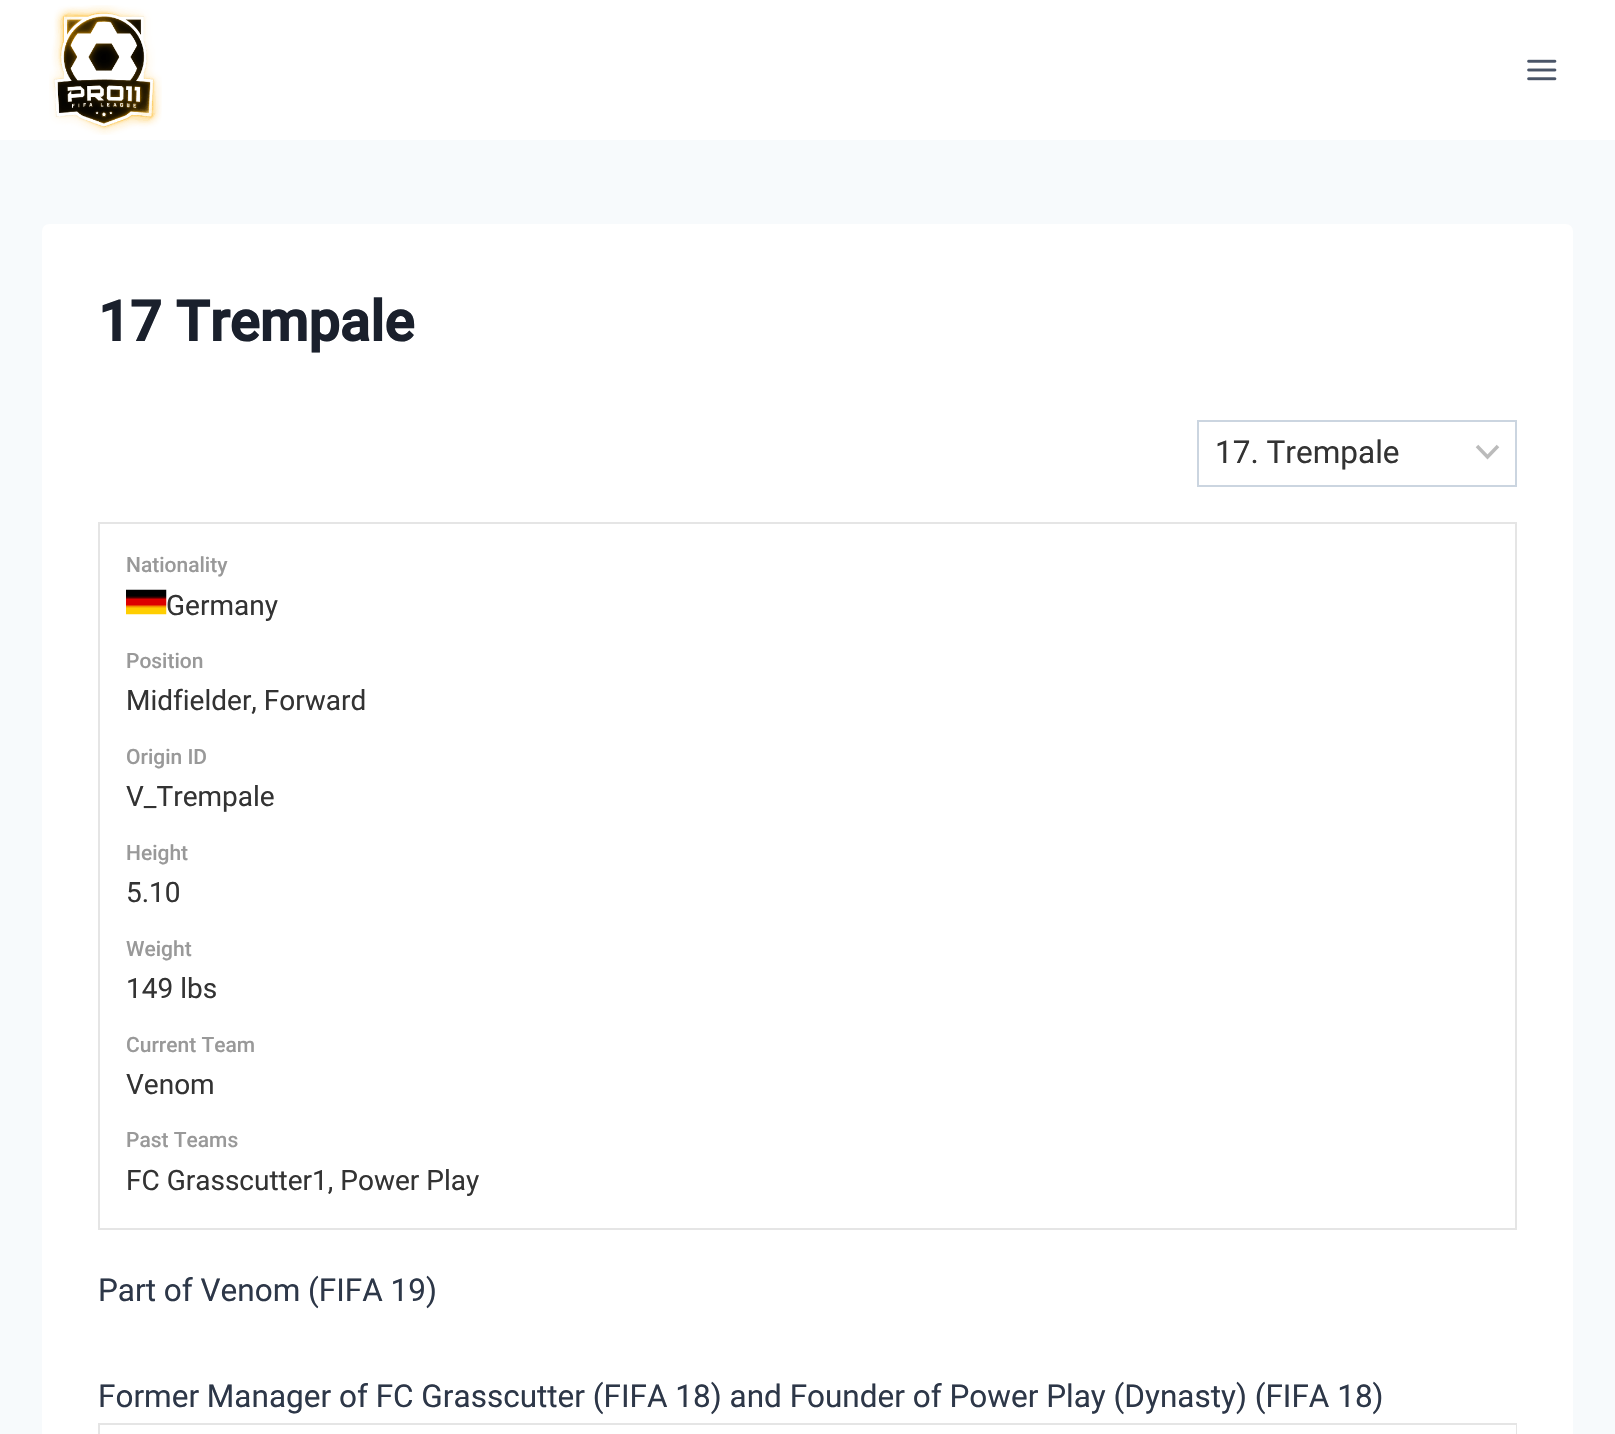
void draw(SkCanvas* canvas) {
    SkPaint paint;
    paint.setAntiAlias(true);
    canvas->clear(0xFFF7FAFC);
    paint.setColor(0xFFFFFFFF);
    canvas->drawRect(SkRect::MakeXYWH(0, 0, 1615, 140), paint);
    canvas->drawImageRect(SkImages::DeferredFromEncodedData(SkData::MakeFromFileName("img1.png")), SkRect::MakeXYWH(49, 5, 113, 130), SkSamplingOptions());
    canvas->drawImageRect(SkImages::DeferredFromEncodedData(SkData::MakeFromFileName("img2.png")), SkRect::MakeXYWH(1527, 59, 30, 22), SkSamplingOptions());
    canvas->drawRoundRect(SkRect::MakeXYWH(42, 224, 1531, 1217), 7, 7, paint);
    SkFont font1(fontMgr->matchFamilyStyle("Roboto", SkFontStyle::Bold()), 56);
    font1.setSubpixel(true);
    paint.setColor(0xFF1A202C);
    canvas->drawString("17 Trempale", 98, 341, font1, paint);
    paint.setStyle(SkPaint::kStroke_Style);
    paint.setStrokeWidth(3.5f);
    paint.setColor(0xFFBBBBBB);
    canvas->drawPath(SkPathBuilder().moveTo(1477, 446).lineTo(1487.5f, 457).lineTo(1498, 446).detach(), paint);
    paint.setStrokeWidth(2);
    paint.setColor(0xFFCBD5E0);
    canvas->drawRect(SkRect::MakeXYWH(1198, 421, 318, 65), paint);
    SkFont font2(fontMgr->matchFamilyStyle("Roboto", SkFontStyle::Normal()), 31.5f);
    font2.setSubpixel(true);
    paint.setStyle(SkPaint::kFill_Style);
    paint.setColor(0xFF333333);
    canvas->drawString("17. Trempale", 1215, 463, font2, paint);
    paint.setStyle(SkPaint::kStroke_Style);
    paint.setColor(0xFFE5E5E5);
    canvas->drawRect(SkRect::MakeXYWH(99, 523, 1417, 706), paint);
    SkFont font3(fontMgr->matchFamilyStyle("Roboto", SkFontStyle(500, SkFontStyle::kNormal_Width, SkFontStyle::kUpright_Slant)), 21);
    font3.setSubpixel(true);
    paint.setStyle(SkPaint::kFill_Style);
    paint.setColor(0xFF999999);
    canvas->drawString("Nationality", 126, 572, font3, paint);
    canvas->drawImageRect(SkImages::DeferredFromEncodedData(SkData::MakeFromFileName("img3.png")), SkRect::MakeXYWH(126, 589, 41, 26), SkSamplingOptions());
    SkFont font4(fontMgr->matchFamilyStyle("Roboto", SkFontStyle::Normal()), 28);
    font4.setSubpixel(true);
    paint.setColor(0xFF333333);
    canvas->drawString("Germany", 166, 615, font4, paint);
    paint.setColor(0xFF999999);
    canvas->drawString("Position", 126, 668, font3, paint);
    paint.setColor(0xFF333333);
    canvas->drawString("Midfielder, Forward", 126, 710, font4, paint);
    paint.setColor(0xFF999999);
    canvas->drawString("Origin ID", 126, 764, font3, paint);
    paint.setColor(0xFF333333);
    canvas->drawString("V_Trempale", 126, 806, font4, paint);
    paint.setColor(0xFF999999);
    canvas->drawString("Height", 126, 860, font3, paint);
    paint.setColor(0xFF333333);
    canvas->drawString("5.10", 126, 902, font4, paint);
    paint.setColor(0xFF999999);
    canvas->drawString("Weight", 126, 956, font3, paint);
    paint.setColor(0xFF333333);
    canvas->drawString("149 lbs", 126, 998, font4, paint);
    paint.setColor(0xFF999999);
    canvas->drawString("Current Team", 126, 1052, font3, paint);
    paint.setColor(0xFF333333);
    canvas->drawString("Venom", 126, 1094, font4, paint);
    paint.setColor(0xFF999999);
    canvas->drawString("Past Teams", 126, 1147, font3, paint);
    paint.setColor(0xFF333333);
    canvas->drawString("FC Grasscutter1, Power Play", 126, 1190, font4, paint);
    paint.setColor(0xFF2D3748);
    canvas->drawString("Part of Venom (FIFA 19)", 98, 1301, font2, paint);
    canvas->drawString("Former Manager of FC Grasscutter (FIFA 18) and Founder of Power Play (Dynasty) (FIFA 18)", 98, 1407, font2, paint);
    paint.setColor(0xFFE5E5E5);
    canvas->drawRect(SkRect::MakeXYWH(98, 1423, 1419, 2), paint);
    canvas->drawRect(SkRect::MakeXYWH(1516, 1423, 1, 11), paint);
    canvas->drawRect(SkRect::MakeXYWH(98, 1423, 2, 11), paint);
}
